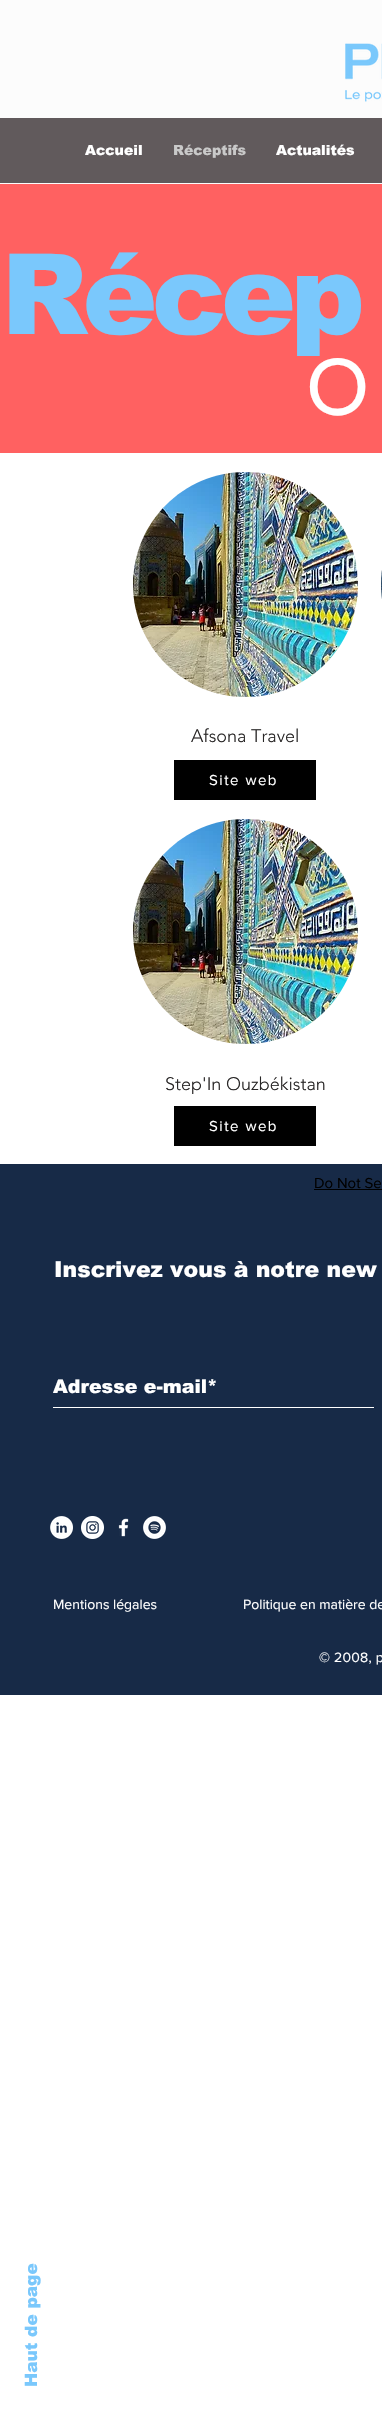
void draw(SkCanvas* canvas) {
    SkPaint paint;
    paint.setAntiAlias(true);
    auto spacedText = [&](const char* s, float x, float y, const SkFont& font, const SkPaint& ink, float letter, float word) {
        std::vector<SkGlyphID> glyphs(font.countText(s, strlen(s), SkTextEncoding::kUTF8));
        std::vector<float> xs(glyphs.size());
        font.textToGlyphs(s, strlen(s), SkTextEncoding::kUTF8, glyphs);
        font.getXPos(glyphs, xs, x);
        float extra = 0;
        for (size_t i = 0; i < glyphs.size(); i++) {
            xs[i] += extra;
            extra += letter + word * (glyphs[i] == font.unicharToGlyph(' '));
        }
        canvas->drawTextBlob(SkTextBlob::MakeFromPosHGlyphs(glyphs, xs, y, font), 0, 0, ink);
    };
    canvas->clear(0xFFFFFFFF);
    paint.setColor(0xFFFCFCFC);
    canvas->drawRect(SkRect::MakeXYWH(0, 0, 382, 184), paint);
    canvas->drawImageRect(SkImages::DeferredFromEncodedData(SkData::MakeFromFileName("img1.png")), SkRect::MakeXYWH(345, 43, 37, 59), SkSamplingOptions());
    paint.setColor(0xFF615A5C);
    canvas->drawRect(SkRect::MakeXYWH(0, 118, 382, 65), paint);
    SkFont font1(fontMgr->matchFamilyStyle("arial", SkFontStyle(900, SkFontStyle::kNormal_Width, SkFontStyle::kUpright_Slant)), 14);
    font1.setSubpixel(true);
    paint.setColor(0xFFFFFFFF);
    canvas->drawString("Accueil", 85, 155, font1, paint);
    paint.setColor(0xFFC9C9C9);
    canvas->drawString("Réceptifs", 173, 155, font1, paint);
    paint.setColor(0xFFFFFFFF);
    canvas->drawString("Actualités", 276, 155, font1, paint);
    paint.setColor(0xFFFF6161);
    canvas->drawRect(SkRect::MakeXYWH(0, 184, 382, 269), paint);
    SkFont font2(fontMgr->matchFamilyStyle("arial", SkFontStyle(900, SkFontStyle::kNormal_Width, SkFontStyle::kUpright_Slant)), 112);
    font2.setSubpixel(true);
    paint.setColor(0xFF7AC8FC);
    spacedText("Récep", 1, 334, font2, paint, -5.5f, 0);
    SkFont font3(fontMgr->matchFamilyStyle("Poppins", SkFontStyle::Normal()), 80);
    font3.setSubpixel(true);
    paint.setColor(0xFFFFFFFF);
    canvas->drawString("O", 306, 415, font3, paint);
    canvas->drawImageRect(SkImages::DeferredFromEncodedData(SkData::MakeFromFileName("img2.png")), SkRect::MakeXYWH(381, 570, 1, 29), SkSamplingOptions());
    canvas->drawImageRect(SkImages::DeferredFromEncodedData(SkData::MakeFromFileName("img3.png")), SkRect::MakeXYWH(133, 472, 225, 225), SkSamplingOptions());
    SkFont font4(fontMgr->matchFamilyStyle("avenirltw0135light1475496", SkFontStyle(300, SkFontStyle::kNormal_Width, SkFontStyle::kUpright_Slant)), 18);
    font4.setSubpixel(true);
    paint.setColor(0xFF282626);
    canvas->drawString("Afsona Travel", 191, 742, font4, paint);
    paint.setColor(0xFF000000);
    canvas->drawRect(SkRect::MakeXYWH(174, 760, 142, 40), paint);
    SkFont font5(fontMgr->matchFamilyStyle("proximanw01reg", SkFontStyle::Normal()), 15);
    font5.setSubpixel(true);
    paint.setColor(0xFFFFFFFF);
    spacedText("Site web", 209, 785, font5, paint, 1.5f, 0);
    canvas->drawImageRect(SkImages::DeferredFromEncodedData(SkData::MakeFromFileName("img3.png")), SkRect::MakeXYWH(133, 819, 225, 225), SkSamplingOptions());
    paint.setColor(0xFF282626);
    canvas->drawString("Step'In Ouzbékistan", 165, 1090, font4, paint);
    paint.setColor(0xFF000000);
    canvas->drawRect(SkRect::MakeXYWH(174, 1106, 142, 40), paint);
    paint.setColor(0xFFFFFFFF);
    spacedText("Site web", 209, 1131, font5, paint, 1.5f, 0);
    paint.setColor(0xFF172A47);
    canvas->drawRect(SkRect::MakeXYWH(0, 1164, 382, 531), paint);
    paint.setColor(0xFF000000);
    canvas->drawString("Do Not Se", 314, 1188, font5, paint);
    canvas->drawRect(SkRect::MakeXYWH(314, 1189, 68, 1), paint);
    SkFont font6(fontMgr->matchFamilyStyle("arial", SkFontStyle(900, SkFontStyle::kNormal_Width, SkFontStyle::kUpright_Slant)), 22);
    font6.setSubpixel(true);
    paint.setColor(0xFFFFFFFF);
    canvas->drawString("Inscrivez vous à notre new", 54, 1277, font6, paint);
    canvas->drawRect(SkRect::MakeXYWH(53, 1407, 321, 1), paint);
    SkFont font7(fontMgr->matchFamilyStyle("arial", SkFontStyle(900, SkFontStyle::kNormal_Width, SkFontStyle::kUpright_Slant)), 19);
    font7.setSubpixel(true);
    canvas->drawString("Adresse e-mail*", 53, 1393, font7, paint);
    canvas->drawImageRect(SkImages::DeferredFromEncodedData(SkData::MakeFromFileName("img4.png")), SkRect::MakeXYWH(50, 1516, 23, 23), SkSamplingOptions());
    canvas->drawImageRect(SkImages::DeferredFromEncodedData(SkData::MakeFromFileName("img5.png")), SkRect::MakeXYWH(81, 1516, 23, 23), SkSamplingOptions());
    canvas->drawImageRect(SkImages::DeferredFromEncodedData(SkData::MakeFromFileName("img6.png")), SkRect::MakeXYWH(118, 1518, 11, 19), SkSamplingOptions());
    canvas->drawImageRect(SkImages::DeferredFromEncodedData(SkData::MakeFromFileName("img7.png")), SkRect::MakeXYWH(143, 1516, 23, 23), SkSamplingOptions());
    SkFont font8(fontMgr->matchFamilyStyle("proximanw01reg", SkFontStyle::Normal()), 14);
    font8.setSubpixel(true);
    canvas->drawString("Mentions légales", 53, 1609, font8, paint);
    canvas->drawString("Politique en matière de", 243, 1609, font8, paint);
    spacedText("© 2008, p", 319, 1662, font8, paint, 0.25f, 0);
    SkFont font9(fontMgr->matchFamilyStyle("arial", SkFontStyle(900, SkFontStyle::kNormal_Width, SkFontStyle::kUpright_Slant)), 17);
    font9.setSubpixel(true);
    paint.setColor(0xFF7AC8FC);
    canvas->save();
    canvas->rotate(-90, 37, 2387);
    canvas->drawString("Haut de page", 37, 2387, font9, paint);
    canvas->restore();
}
